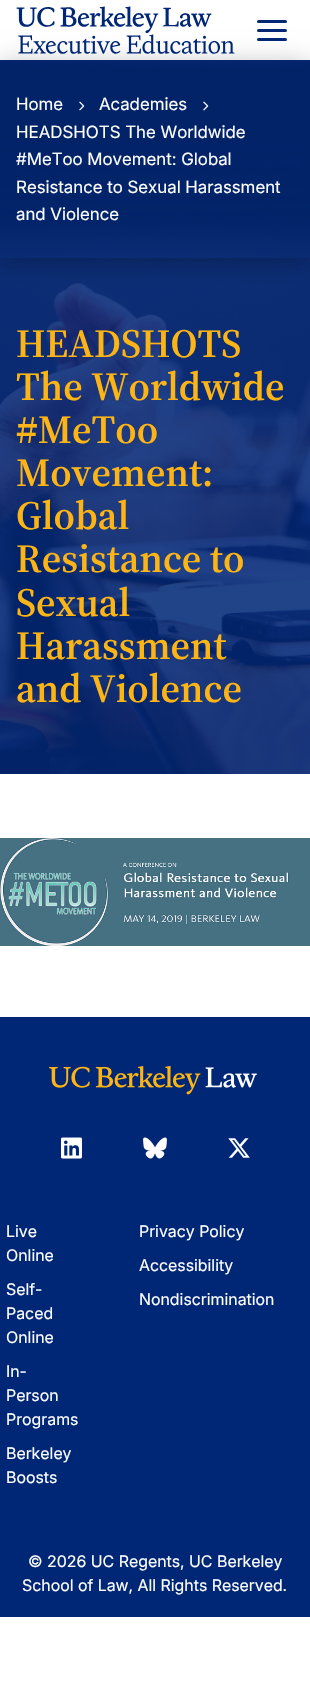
void draw(SkCanvas* canvas) {
    SkPaint paint;
    paint.setAntiAlias(true);
    canvas->clear(0xFFFFFFFF);
    canvas->drawImageRect(SkImages::DeferredFromEncodedData(SkData::MakeFromFileName("img2.png")), SkRect::MakeXYWH(0, 60, 310, 714), SkSamplingOptions());
    canvas->save();
    canvas->clipPath(SkPathBuilder(SkPathFillType::kEvenOdd).moveTo(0, 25).lineTo(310, 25).lineTo(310, 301).lineTo(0, 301).close().moveTo(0, 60).lineTo(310, 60).lineTo(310, 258).lineTo(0, 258).close().detach(), true);
    paint.setColor(0x40000000);
    paint.setMaskFilter(SkMaskFilter::MakeBlur(kNormal_SkBlurStyle, 12.5f));
    canvas->drawRect(SkRect::MakeXYWH(0, 64, 310, 198), paint);
    paint.setMaskFilter(nullptr);
    canvas->restore();
    canvas->drawImageRect(SkImages::DeferredFromEncodedData(SkData::MakeFromFileName("img1.png")), SkRect::MakeXYWH(16, 6, 219, 48), SkSamplingOptions());
    paint.setColor(0xFF002676);
    canvas->drawRoundRect(SkRect::MakeXYWH(257, 20, 30, 3), 1.5f, 1.5f, paint);
    canvas->drawRoundRect(SkRect::MakeXYWH(257, 29, 30, 3), 1.5f, 1.5f, paint);
    canvas->drawRoundRect(SkRect::MakeXYWH(257, 38, 30, 3), 1.5f, 1.5f, paint);
    SkFont font1(fontMgr->matchFamilyStyle("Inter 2", SkFontStyle::Normal()), 17);
    font1.setSubpixel(true);
    paint.setColor(0xFFFFFFFF);
    canvas->drawString("Home", 16, 110, font1, paint);
    canvas->drawImageRect(SkImages::DeferredFromEncodedData(SkData::MakeFromFileName("img3.png")), SkRect::MakeXYWH(79, 101, 6, 10), SkSamplingOptions());
    canvas->drawString("Academies", 99, 110, font1, paint);
    canvas->drawImageRect(SkImages::DeferredFromEncodedData(SkData::MakeFromFileName("img4.png")), SkRect::MakeXYWH(203, 101, 6, 10), SkSamplingOptions());
    canvas->drawString("HEADSHOTS The Worldwide", 16, 138, font1, paint);
    canvas->drawString("#MeToo Movement: Global", 16, 165, font1, paint);
    canvas->drawString("Resistance to Sexual Harassment", 16, 193, font1, paint);
    canvas->drawString("and Violence", 16, 220, font1, paint);
    SkFont font2(fontMgr->matchFamilyStyle("Source Serif 4", SkFontStyle(600, SkFontStyle::kNormal_Width, SkFontStyle::kUpright_Slant)), 40);
    font2.setSubpixel(true);
    paint.setColor(0xFFFDB515);
    canvas->drawString("HEADSHOTS", 16, 357, font2, paint);
    canvas->drawString("The Worldwide", 16, 400, font2, paint);
    canvas->drawString("#MeToo", 16, 443, font2, paint);
    canvas->drawString("Movement:", 16, 486, font2, paint);
    canvas->drawString("Global", 16, 529, font2, paint);
    canvas->drawString("Resistance to", 16, 572, font2, paint);
    canvas->drawString("Sexual", 16, 616, font2, paint);
    canvas->drawString("Harassment", 16, 659, font2, paint);
    canvas->drawString("and Violence", 16, 702, font2, paint);
    canvas->drawImageRect(SkImages::DeferredFromEncodedData(SkData::MakeFromFileName("img5.png")), SkRect::MakeXYWH(0, 838, 310, 108), SkSamplingOptions());
    paint.setColor(0xFF002676);
    canvas->drawRect(SkRect::MakeXYWH(0, 1017, 310, 600), paint);
    canvas->drawImageRect(SkImages::DeferredFromEncodedData(SkData::MakeFromFileName("img6.png")), SkRect::MakeXYWH(49, 1066, 208, 29), SkSamplingOptions());
    canvas->drawImageRect(SkImages::DeferredFromEncodedData(SkData::MakeFromFileName("img7.png")), SkRect::MakeXYWH(61, 1137, 21, 22), SkSamplingOptions());
    canvas->drawImageRect(SkImages::DeferredFromEncodedData(SkData::MakeFromFileName("img8.png")), SkRect::MakeXYWH(143, 1137, 24, 22), SkSamplingOptions());
    canvas->drawImageRect(SkImages::DeferredFromEncodedData(SkData::MakeFromFileName("img9.png")), SkRect::MakeXYWH(228, 1138, 22, 20), SkSamplingOptions());
    SkFont font3(fontMgr->matchFamilyStyle("Inter", SkFontStyle::Normal()), 16);
    font3.setSubpixel(true);
    paint.setColor(0xFFFFFFFF);
    canvas->drawString("Live", 6, 1237, font3, paint);
    canvas->drawString("Online", 6, 1261, font3, paint);
    canvas->drawString("Self-", 6, 1295, font3, paint);
    canvas->drawString("Paced", 6, 1319, font3, paint);
    canvas->drawString("Online", 6, 1343, font3, paint);
    canvas->drawString("In-", 6, 1377, font3, paint);
    canvas->drawString("Person", 6, 1401, font3, paint);
    canvas->drawString("Programs", 6, 1425, font3, paint);
    canvas->drawString("Berkeley", 6, 1459, font3, paint);
    canvas->drawString("Boosts", 6, 1483, font3, paint);
    canvas->drawString("Privacy Policy", 139, 1237, font3, paint);
    canvas->drawString("Accessibility", 139, 1271, font3, paint);
    canvas->drawString("Nondiscrimination", 139, 1305, font3, paint);
    canvas->drawString("© 2026 UC Regents, UC Berkeley", 28, 1567, font3, paint);
    canvas->drawString("School of Law, All Rights Reserved.", 22, 1591, font3, paint);
}
